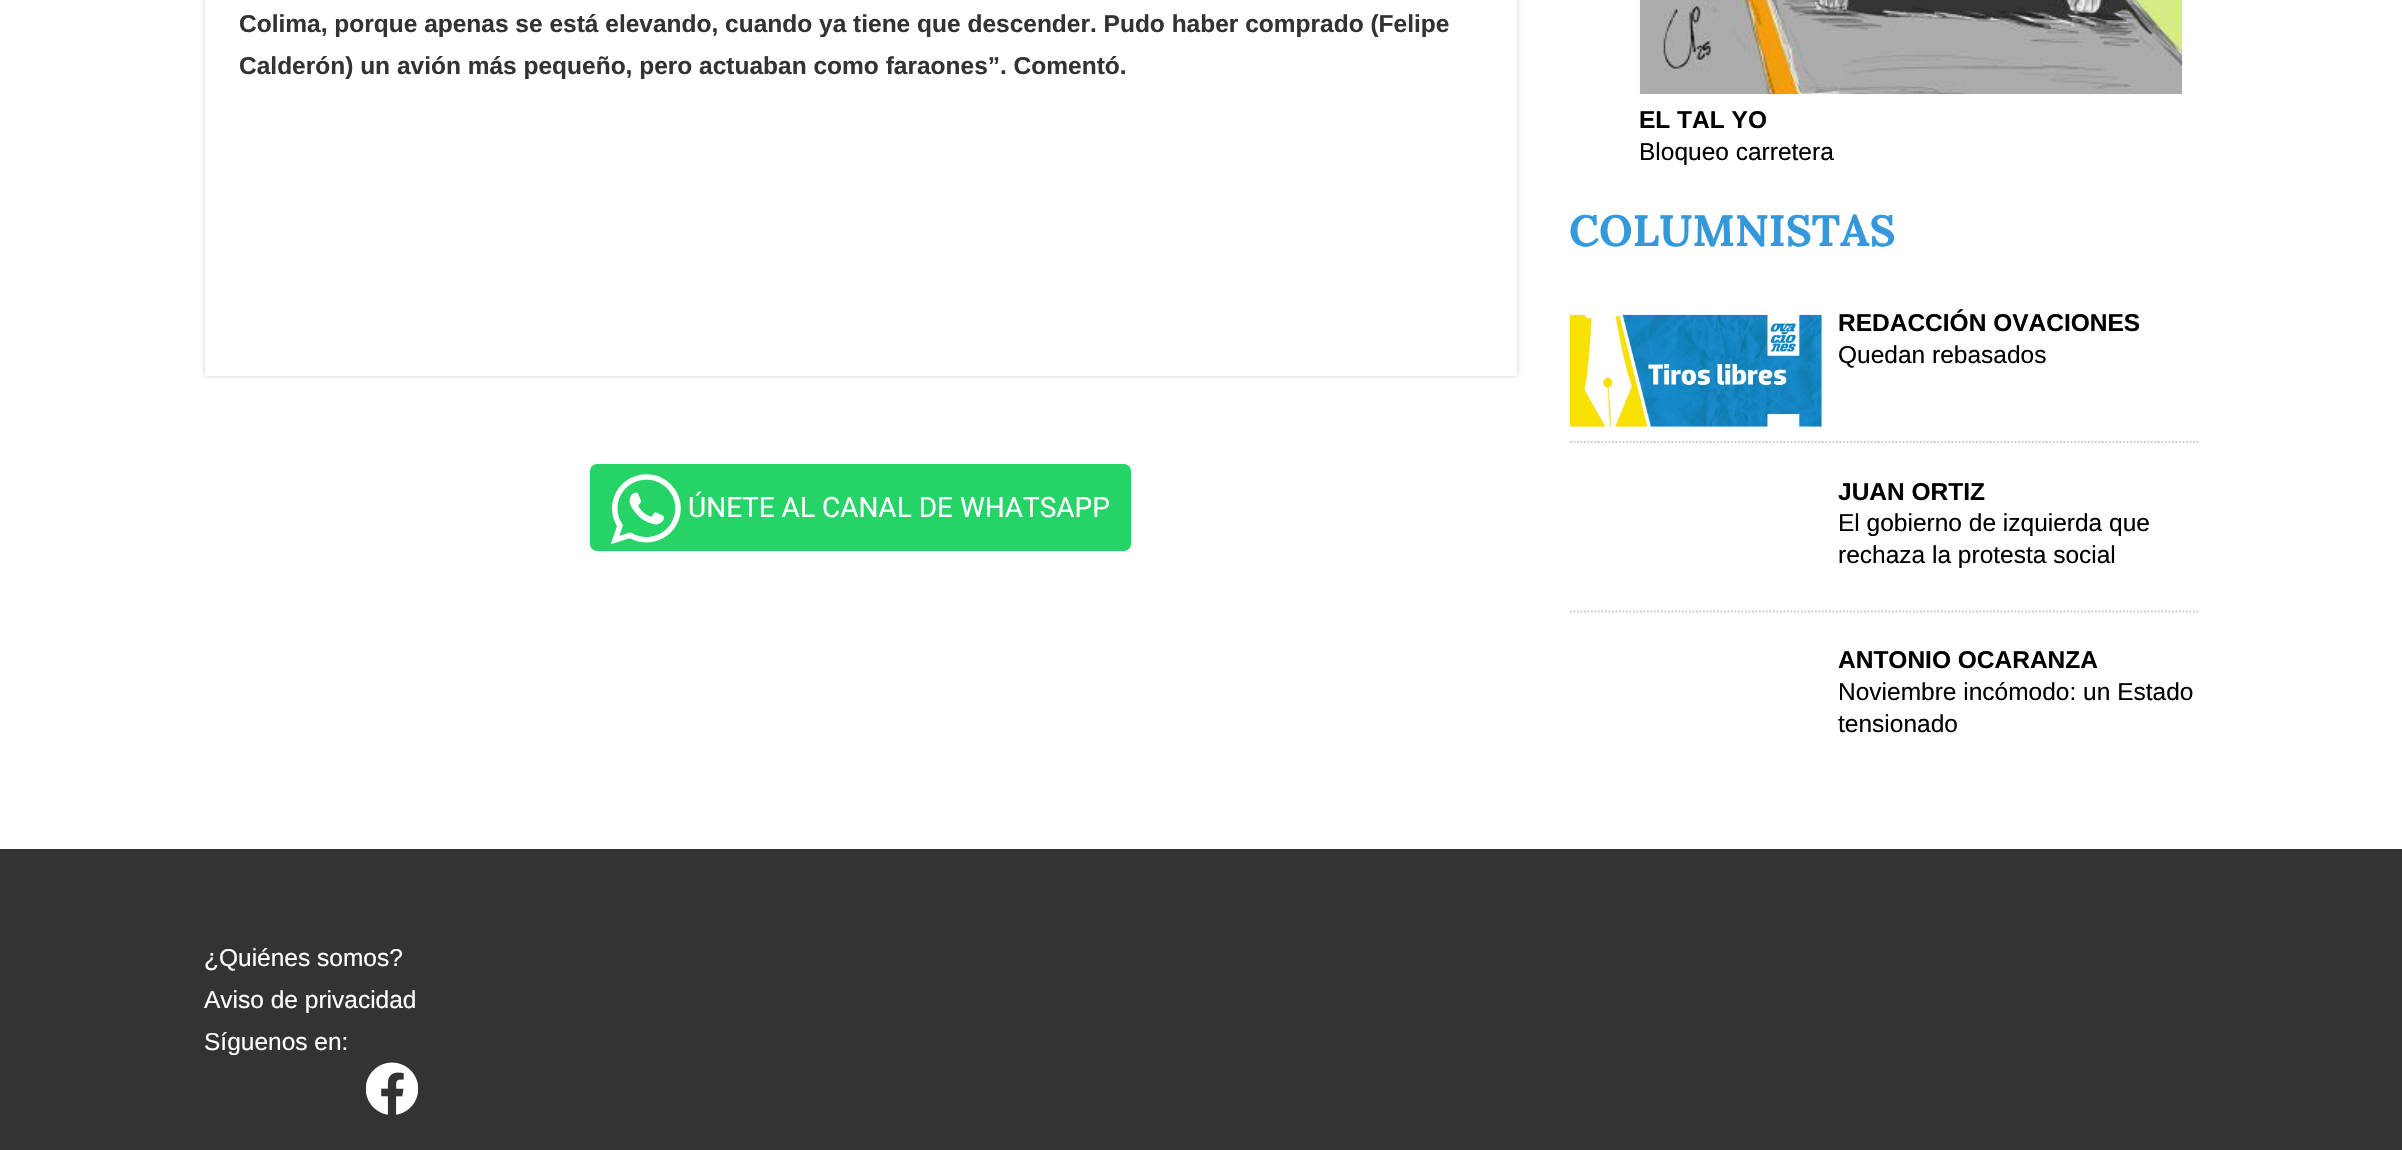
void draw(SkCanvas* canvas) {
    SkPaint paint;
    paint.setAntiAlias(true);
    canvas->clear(0xFFFFFFFF);
    canvas->save();
    canvas->clipPath(SkPathBuilder(SkPathFillType::kEvenOdd).moveTo(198, 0).lineTo(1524, 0).lineTo(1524, 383).lineTo(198, 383).close().moveTo(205, -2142).lineTo(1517, -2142).lineTo(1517, 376).lineTo(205, 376).close().detach(), true);
    paint.setColor(0x33000000);
    paint.setMaskFilter(SkMaskFilter::MakeBlur(kNormal_SkBlurStyle, 2));
    canvas->drawRect(SkRect::MakeXYWH(205, -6, 1312, 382), paint);
    paint.setMaskFilter(nullptr);
    canvas->restore();
    SkFont font1(fontMgr->matchFamilyStyle("Liberation Sans", SkFontStyle::Bold()), 24.5f);
    font1.setSubpixel(true);
    paint.setColor(0xFF333333);
    canvas->drawString("Colima, porque apenas se está elevando, cuando ya tiene que descender. Pudo haber comprado (Felipe", 239, 32, font1, paint);
    canvas->drawString("Calderón) un avión más pequeño, pero actuaban como faraones”. Comentó.", 239, 74, font1, paint);
    paint.setColor(0xFF25D366);
    canvas->drawRoundRect(SkRect::MakeXYWH(590, 464, 541, 87), 7, 7, paint);
    canvas->drawImageRect(SkImages::DeferredFromEncodedData(SkData::MakeFromFileName("img1.png")), SkRect::MakeXYWH(611, 474, 70, 70), SkSamplingOptions());
    SkFont font2(fontMgr->matchFamilyStyle("Roboto", SkFontStyle::Normal()), 28);
    font2.setSubpixel(true);
    paint.setColor(0xFFFFFFFF);
    canvas->drawString("ÚNETE AL CANAL DE WHATSAPP", 688, 517, font2, paint);
    canvas->drawImageRect(SkImages::DeferredFromEncodedData(SkData::MakeFromFileName("img2.png")), SkRect::MakeXYWH(1639, 0, 544, 95), SkSamplingOptions());
    paint.setColor(0xFF000000);
    canvas->drawString("EL TAL YO", 1639, 128, font1, paint);
    SkFont font3(fontMgr->matchFamilyStyle("Liberation Sans", SkFontStyle::Normal()), 24.5f);
    font3.setSubpixel(true);
    canvas->drawString("Bloqueo carretera", 1639, 160, font3, paint);
    SkFont font4(fontMgr->matchFamilyStyle("Lora", SkFontStyle::Bold()), 43.75f);
    font4.setSubpixel(true);
    paint.setColor(0xFF3498DB);
    canvas->drawString("COLUMNISTAS", 1569, 246, font4, paint);
    paint.setStyle(SkPaint::kStroke_Style);
    paint.setStrokeWidth(1.8f);
    paint.setColor(0xFFCCCCCC);
    paint.setPathEffect(SkDashPathEffect::Make({{1.75f, 1.75f}}, 0));
    canvas->drawPath(SkPathBuilder().moveTo(1570, 442).lineTo(2200, 442).detach(), paint);
    paint.setPathEffect(nullptr);
    canvas->drawImageRect(SkImages::DeferredFromEncodedData(SkData::MakeFromFileName("img3.png")), SkRect::MakeXYWH(1569, 314, 253, 113), SkSamplingOptions());
    paint.setStyle(SkPaint::kFill_Style);
    paint.setColor(0xFF000000);
    canvas->drawString("REDACCIÓN OVACIONES", 1838, 331, font1, paint);
    canvas->drawString("Quedan rebasados", 1838, 363, font3, paint);
    paint.setStyle(SkPaint::kStroke_Style);
    paint.setColor(0xFFCCCCCC);
    paint.setPathEffect(SkDashPathEffect::Make({{1.75f, 1.75f}}, 0));
    canvas->drawPath(SkPathBuilder().moveTo(1570, 611.5f).lineTo(2200, 611.5f).detach(), paint);
    paint.setPathEffect(nullptr);
    paint.setStyle(SkPaint::kFill_Style);
    paint.setColor(0xFF000000);
    canvas->drawString("JUAN ORTIZ", 1838, 500, font1, paint);
    canvas->drawString("El gobierno de izquierda que", 1838, 531, font3, paint);
    canvas->drawString("rechaza la protesta social", 1838, 563, font3, paint);
    canvas->drawString("ANTONIO OCARANZA", 1838, 668, font1, paint);
    canvas->drawString("Noviembre incómodo: un Estado", 1838, 700, font3, paint);
    canvas->drawString("tensionado", 1838, 732, font3, paint);
    paint.setColor(0xFF333333);
    canvas->drawRect(SkRect::MakeXYWH(0, 849, 2402, 301), paint);
    paint.setColor(0xFFFFFFFF);
    canvas->drawString("¿Quiénes somos?", 204, 966, font3, paint);
    canvas->drawString("Aviso de privacidad", 204, 1008, font3, paint);
    canvas->drawString("Síguenos en:", 204, 1050, font3, paint);
    canvas->drawImageRect(SkImages::DeferredFromEncodedData(SkData::MakeFromFileName("img4.png")), SkRect::MakeXYWH(366, 1062, 52, 53), SkSamplingOptions());
}
